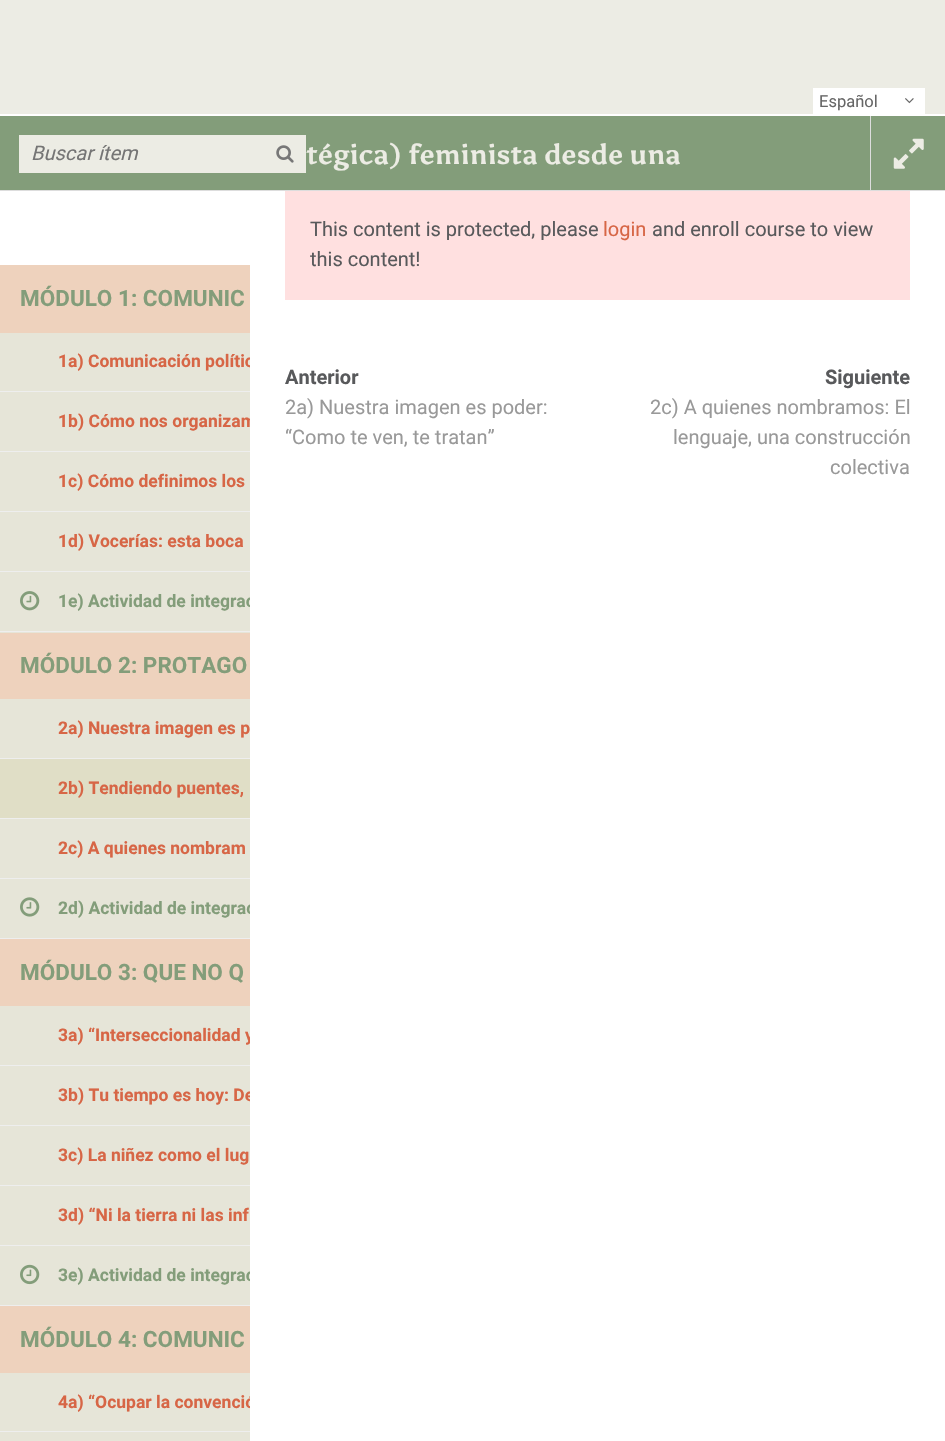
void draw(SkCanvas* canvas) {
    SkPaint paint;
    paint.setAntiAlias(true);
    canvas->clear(0xFFFFFFFF);
    paint.setColor(0xFFECECE4);
    canvas->drawRect(SkRect::MakeXYWH(0, 0, 945, 114), paint);
    paint.setColor(0xFFFFFFFF);
    canvas->drawRect(SkRect::MakeXYWH(813, 88, 112, 26), paint);
    SkFont font1(fontMgr->matchFamilyStyle("Roboto", SkFontStyle::Normal()), 16.5f);
    font1.setSubpixel(true);
    paint.setColor(0xFF666666);
    canvas->drawString("Español", 819, 107, font1, paint);
    canvas->drawImageRect(SkImages::DeferredFromEncodedData(SkData::MakeFromFileName("img1.png")), SkRect::MakeXYWH(905, 98, 9, 6), SkSamplingOptions());
    paint.setColor(0xFFE6E5D8);
    canvas->drawRect(SkRect::MakeXYWH(0, 333, 250, 300), paint);
    SkFont font2(fontMgr->matchFamilyStyle("Roboto", SkFontStyle::Bold()), 17.5f);
    font2.setSubpixel(true);
    paint.setColor(0xFFD76646);
    canvas->drawString("1a) Comunicación polític", 58, 367, font2, paint);
    canvas->drawString("1b) Cómo nos organizam", 58, 427, font2, paint);
    paint.setColor(0xFF839D7A);
    canvas->drawString("1e) Actividad de integrac", 58, 607, font2, paint);
    paint.setColor(0xFFE6E5D8);
    canvas->drawRect(SkRect::MakeXYWH(0, 699, 250, 239), paint);
    paint.setColor(0xFF839D7A);
    canvas->drawString("2d) Actividad de integrac", 58, 914, font2, paint);
    paint.setColor(0xFFE6E5D8);
    canvas->drawRect(SkRect::MakeXYWH(0, 1006, 250, 299), paint);
    paint.setColor(0xFFD76646);
    canvas->drawString("3a) “Interseccionalidad y", 58, 1041, font2, paint);
    canvas->drawString("3b) Tu tiempo es hoy: De", 58, 1101, font2, paint);
    paint.setColor(0xFF839D7A);
    canvas->drawString("3e) Actividad de integrac", 58, 1281, font2, paint);
    paint.setColor(0xFFE6E5D8);
    canvas->drawRect(SkRect::MakeXYWH(0, 1373, 250, 68), paint);
    paint.setColor(0xFFD76646);
    canvas->drawString("4a) “Ocupar la convenció", 58, 1408, font2, paint);
    paint.setColor(0xFFFFFFFF);
    canvas->drawRect(SkRect::MakeXYWH(250, 357, 5, 1052), paint);
    paint.setColor(0xFF839D7A);
    canvas->drawRect(SkRect::MakeXYWH(0, 116, 945, 74), paint);
    paint.setColor(0xFFDDDDDD);
    canvas->drawRect(SkRect::MakeXYWH(0, 190, 945, 1), paint);
    paint.setColor(0xFFECECE4);
    canvas->drawRect(SkRect::MakeXYWH(19, 135, 287, 38), paint);
    SkFont font3(fontMgr->matchFamilyStyle("Roboto", SkFontStyle::Italic()), 20);
    font3.setSubpixel(true);
    paint.setColor(0xFF757575);
    canvas->drawString("Buscar ítem", 31, 160, font3, paint);
    canvas->drawImageRect(SkImages::DeferredFromEncodedData(SkData::MakeFromFileName("img2.png")), SkRect::MakeXYWH(276, 145, 18, 18), SkSamplingOptions());
    SkFont font4(fontMgr->matchFamilyStyle("Asul", SkFontStyle::Bold()), 28);
    font4.setSubpixel(true);
    paint.setColor(0xFFECECE4);
    canvas->drawString("tégica) feminista desde una", 306, 164, font4, paint);
    paint.setColor(0xFFDDDDDD);
    canvas->drawRect(SkRect::MakeXYWH(870, 116, 1, 74), paint);
    canvas->drawImageRect(SkImages::DeferredFromEncodedData(SkData::MakeFromFileName("img3.png")), SkRect::MakeXYWH(893, 138, 31, 31), SkSamplingOptions());
    paint.setColor(0xFFFFE0E0);
    canvas->drawRect(SkRect::MakeXYWH(285, 191, 625, 109), paint);
    SkFont font5(fontMgr->matchFamilyStyle("Roboto", SkFontStyle::Normal()), 20);
    font5.setSubpixel(true);
    paint.setColor(0xFF58595B);
    canvas->drawString("This content is protected, please", 310, 236, font5, paint);
    paint.setColor(0xFFD76646);
    canvas->drawString("login", 603, 236, font5, paint);
    paint.setColor(0xFF58595B);
    canvas->drawString("and enroll course to view", 652, 236, font5, paint);
    canvas->drawString("this content!", 310, 266, font5, paint);
    SkFont font6(fontMgr->matchFamilyStyle("Roboto", SkFontStyle::Bold()), 20);
    font6.setSubpixel(true);
    canvas->drawString("Anterior", 285, 384, font6, paint);
    paint.setColor(0xFF999999);
    canvas->drawString("2a) Nuestra imagen es poder:", 285, 414, font5, paint);
    canvas->drawString("“Como te ven, te tratan”", 285, 444, font5, paint);
    paint.setColor(0xFF58595B);
    canvas->drawString("Siguiente", 825, 384, font6, paint);
    paint.setColor(0xFF999999);
    canvas->drawString("2c) A quienes nombramos: El", 650, 414, font5, paint);
    canvas->drawString("lenguaje, una construcción", 673, 444, font5, paint);
    canvas->drawString("colectiva", 830, 474, font5, paint);
    paint.setColor(0xFFEED2BD);
    canvas->drawRect(SkRect::MakeXYWH(0, 265, 250, 68), paint);
    SkFont font7(fontMgr->matchFamilyStyle("Roboto", SkFontStyle::Bold()), 22.5f);
    font7.setSubpixel(true);
    paint.setColor(0xFF839D7A);
    canvas->drawString("MÓDULO 1: COMUNIC", 20, 306, font7, paint);
    paint.setColor(0xFFEEEEEE);
    canvas->drawRect(SkRect::MakeXYWH(0, 391, 250, 1), paint);
    canvas->drawRect(SkRect::MakeXYWH(0, 451, 250, 1), paint);
    canvas->drawRect(SkRect::MakeXYWH(0, 511, 250, 1), paint);
    paint.setColor(0xFFD76646);
    canvas->drawString("1c) Cómo definimos los", 58, 487, font2, paint);
    paint.setColor(0xFFEEEEEE);
    canvas->drawRect(SkRect::MakeXYWH(0, 571, 250, 1), paint);
    paint.setColor(0xFFD76646);
    canvas->drawString("1d) Vocerías: esta boca", 58, 547, font2, paint);
    paint.setColor(0xFFEEEEEE);
    canvas->drawRect(SkRect::MakeXYWH(0, 631, 250, 1), paint);
    canvas->drawImageRect(SkImages::DeferredFromEncodedData(SkData::MakeFromFileName("img4.png")), SkRect::MakeXYWH(20, 591, 20, 20), SkSamplingOptions());
    paint.setColor(0xFFEED2BD);
    canvas->drawRect(SkRect::MakeXYWH(0, 633, 250, 66), paint);
    paint.setColor(0xFF839D7A);
    canvas->drawString("MÓDULO 2: PROTAGO", 20, 673, font7, paint);
    paint.setColor(0xFFEEEEEE);
    canvas->drawRect(SkRect::MakeXYWH(0, 758, 250, 1), paint);
    paint.setColor(0xFFD76646);
    canvas->drawString("2a) Nuestra imagen es p", 58, 734, font2, paint);
    paint.setColor(0xFFE0DEC6);
    canvas->drawRect(SkRect::MakeXYWH(0, 759, 250, 59), paint);
    paint.setColor(0xFFEEEEEE);
    canvas->drawRect(SkRect::MakeXYWH(0, 818, 250, 1), paint);
    paint.setColor(0xFFD76646);
    canvas->drawString("2b) Tendiendo puentes,", 58, 794, font2, paint);
    paint.setColor(0xFFEEEEEE);
    canvas->drawRect(SkRect::MakeXYWH(0, 878, 250, 1), paint);
    paint.setColor(0xFFD76646);
    canvas->drawString("2c) A quienes nombram", 58, 854, font2, paint);
    paint.setColor(0xFFEEEEEE);
    canvas->drawRect(SkRect::MakeXYWH(0, 938, 250, 1), paint);
    canvas->drawImageRect(SkImages::DeferredFromEncodedData(SkData::MakeFromFileName("img5.png")), SkRect::MakeXYWH(20, 897, 20, 20), SkSamplingOptions());
    paint.setColor(0xFFEED2BD);
    canvas->drawRect(SkRect::MakeXYWH(0, 939, 250, 67), paint);
    paint.setColor(0xFF839D7A);
    canvas->drawString("MÓDULO 3: QUE NO Q", 20, 980, font7, paint);
    paint.setColor(0xFFEEEEEE);
    canvas->drawRect(SkRect::MakeXYWH(0, 1065, 250, 1), paint);
    canvas->drawRect(SkRect::MakeXYWH(0, 1125, 250, 1), paint);
    canvas->drawRect(SkRect::MakeXYWH(0, 1185, 250, 1), paint);
    paint.setColor(0xFFD76646);
    canvas->drawString("3c) La niñez como el lug", 58, 1161, font2, paint);
    paint.setColor(0xFFEEEEEE);
    canvas->drawRect(SkRect::MakeXYWH(0, 1245, 250, 1), paint);
    paint.setColor(0xFFD76646);
    canvas->drawString("3d) “Ni la tierra ni las inf", 58, 1221, font2, paint);
    paint.setColor(0xFFEEEEEE);
    canvas->drawRect(SkRect::MakeXYWH(0, 1305, 250, 1), paint);
    canvas->drawImageRect(SkImages::DeferredFromEncodedData(SkData::MakeFromFileName("img6.png")), SkRect::MakeXYWH(20, 1264, 20, 21), SkSamplingOptions());
    paint.setColor(0xFFEED2BD);
    canvas->drawRect(SkRect::MakeXYWH(0, 1306, 250, 67), paint);
    paint.setColor(0xFF839D7A);
    canvas->drawString("MÓDULO 4: COMUNIC", 20, 1347, font7, paint);
    paint.setColor(0xFFEEEEEE);
    canvas->drawRect(SkRect::MakeXYWH(0, 1431, 250, 1), paint);
}
